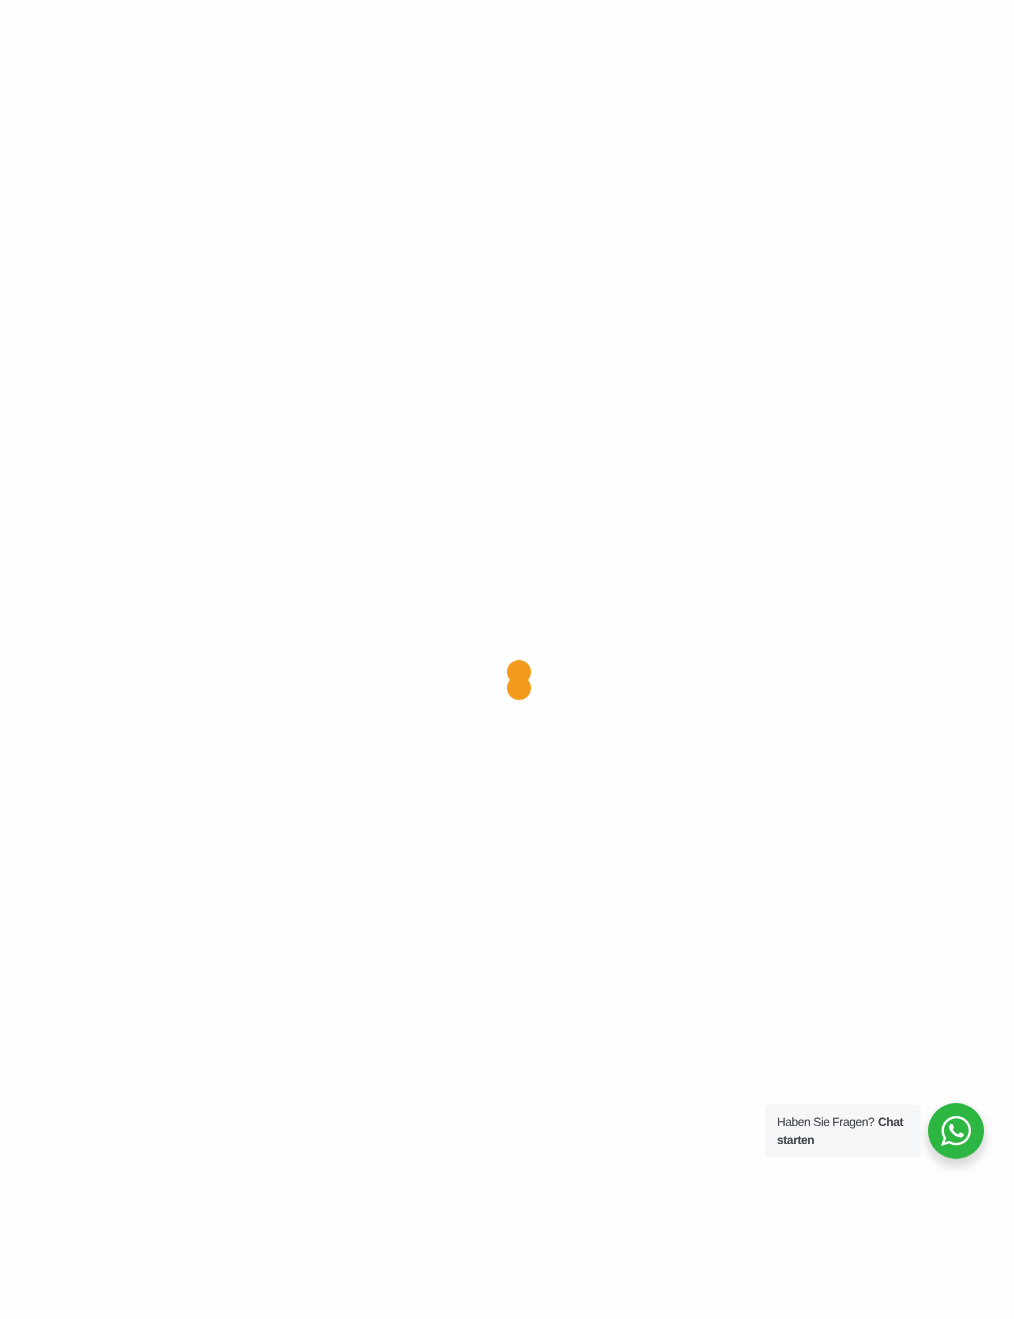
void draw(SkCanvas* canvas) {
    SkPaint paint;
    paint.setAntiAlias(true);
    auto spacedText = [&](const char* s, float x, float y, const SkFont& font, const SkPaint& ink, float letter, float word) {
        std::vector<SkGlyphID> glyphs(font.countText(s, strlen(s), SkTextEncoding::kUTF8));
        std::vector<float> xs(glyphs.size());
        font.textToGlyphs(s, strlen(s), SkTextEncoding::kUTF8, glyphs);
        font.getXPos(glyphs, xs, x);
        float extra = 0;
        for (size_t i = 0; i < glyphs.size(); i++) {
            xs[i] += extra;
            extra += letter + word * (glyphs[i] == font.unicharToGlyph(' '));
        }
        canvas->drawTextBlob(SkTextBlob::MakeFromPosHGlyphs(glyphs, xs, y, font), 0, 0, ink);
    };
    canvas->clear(0xFFFEFEFE);
    paint.setColor(0xFFF49B1E);
    canvas->drawCircle(519, 672, 12, paint);
    canvas->drawCircle(519, 688, 12, paint);
    paint.setColor(0x24000000);
    paint.setMaskFilter(SkMaskFilter::MakeBlur(kNormal_SkBlurStyle, 4));
    canvas->drawRoundRect(SkRect::MakeXYWH(926, 1107, 60, 60), 30, 30, paint);
    paint.setMaskFilter(nullptr);
    paint.setColor(0xFFF5F7F9);
    canvas->drawRoundRect(SkRect::MakeXYWH(765, 1105, 156, 52), 4, 4, paint);
    SkFont font1(fontMgr->matchFamilyStyle("Liberation Sans", SkFontStyle::Normal()), 12);
    font1.setSubpixel(true);
    paint.setColor(0xFF43474E);
    spacedText("Haben Sie Fragen?", 777, 1126, font1, paint, -0.4f, 0);
    SkFont font2(fontMgr->matchFamilyStyle("Liberation Sans", SkFontStyle::Bold()), 12);
    font2.setSubpixel(true);
    spacedText("Chat", 878, 1126, font2, paint, -0.4f, 0);
    spacedText("starten", 777, 1144, font2, paint, -0.4f, 0);
    paint.setColor(0xFF2DB742);
    canvas->drawCircle(956, 1131, 28, paint);
    canvas->drawImageRect(SkImages::DeferredFromEncodedData(SkData::MakeFromFileName("img1.png")), SkRect::MakeXYWH(941, 1116, 30, 30), SkSamplingOptions());
}
